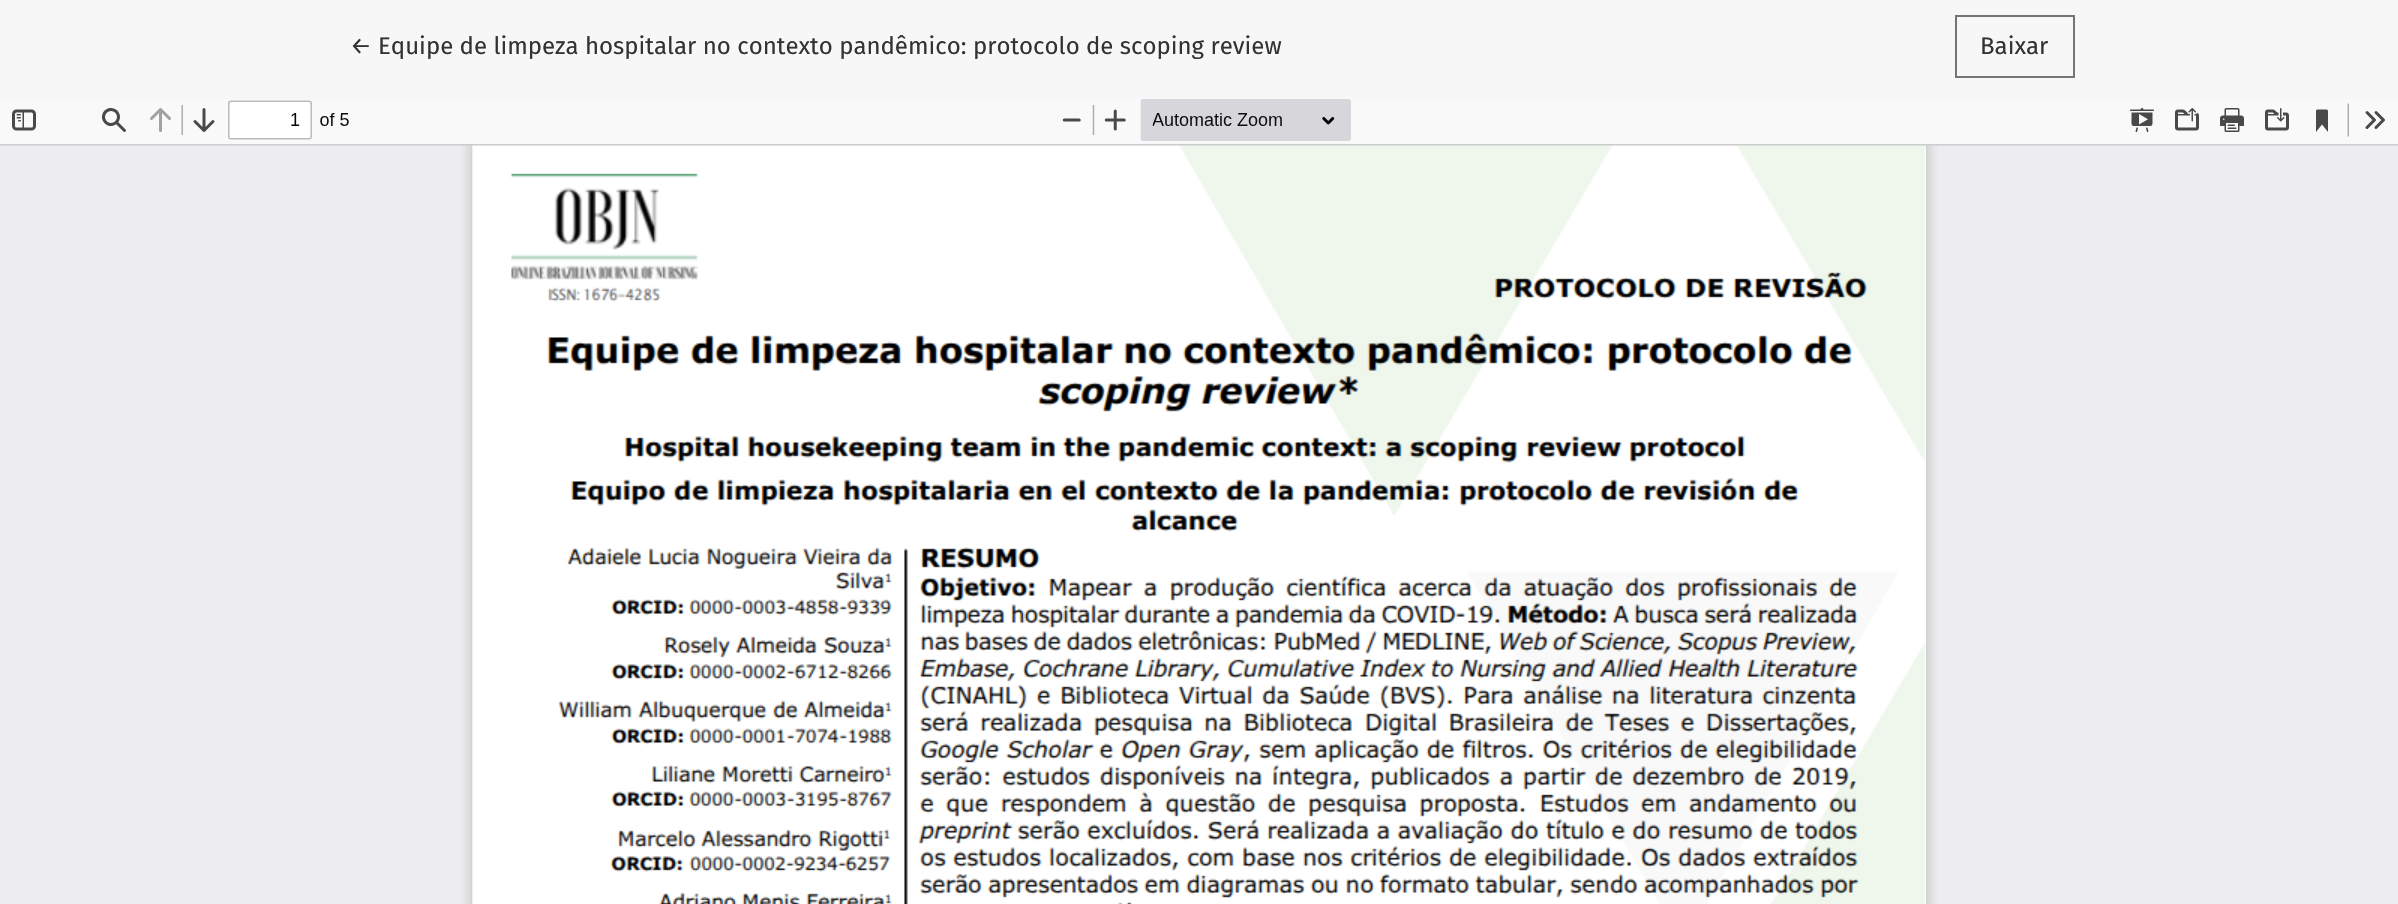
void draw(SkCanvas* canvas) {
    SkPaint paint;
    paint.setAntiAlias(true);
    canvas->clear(0xFFF7F7F7);
    SkFont font1(fontMgr->matchFamilyStyle("Fira Sans", SkFontStyle::Normal()), 24);
    font1.setSubpixel(true);
    paint.setColor(0xFF333333);
    canvas->drawString("← Equipe de limpeza hospitalar no contexto pandêmico: protocolo de scoping review", 350, 54, font1, paint);
    paint.setStyle(SkPaint::kStroke_Style);
    paint.setStrokeWidth(2);
    paint.setColor(0xFF757575);
    canvas->drawRect(SkRect::MakeXYWH(1956, 16, 118, 61), paint);
    paint.setStyle(SkPaint::kFill_Style);
    paint.setColor(0xFF333333);
    canvas->drawString("Baixar", 1980, 54, font1, paint);
    canvas->drawImageRect(SkImages::DeferredFromEncodedData(SkData::MakeFromFileName("img1.png")), SkRect::MakeXYWH(0, 99, 2398, 805), SkSamplingOptions());
}
